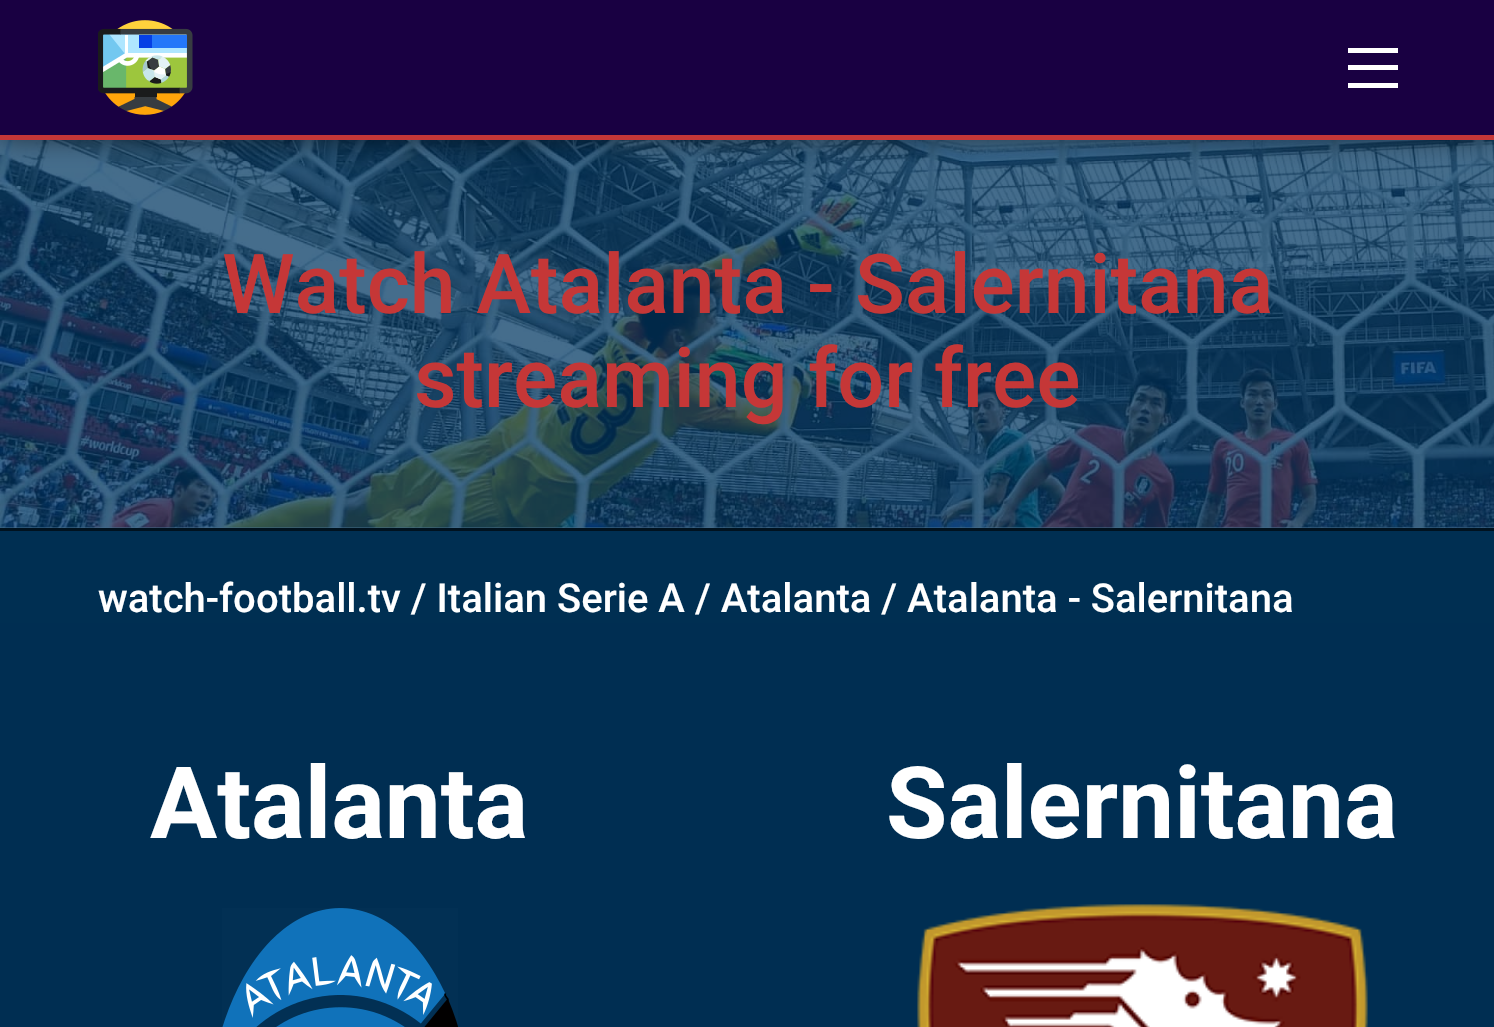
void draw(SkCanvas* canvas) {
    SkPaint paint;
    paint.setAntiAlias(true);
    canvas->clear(0xFF456D8C);
    canvas->drawImageRect(SkImages::DeferredFromEncodedData(SkData::MakeFromFileName("img2.png")), SkRect::MakeXYWH(0, 140, 1494, 388), SkSamplingOptions());
    paint.setColor(0x80000000);
    paint.setMaskFilter(SkMaskFilter::MakeBlur(kNormal_SkBlurStyle, 12.5f));
    canvas->drawRect(SkRect::MakeXYWH(0, 0, 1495, 140), paint);
    paint.setMaskFilter(nullptr);
    paint.setColor(0xFF190042);
    canvas->drawRect(SkRect::MakeXYWH(0, 0, 1494, 135), paint);
    paint.setColor(0xFFC53737);
    canvas->drawRect(SkRect::MakeXYWH(0, 135, 1494, 5), paint);
    canvas->drawImageRect(SkImages::DeferredFromEncodedData(SkData::MakeFromFileName("img1.png")), SkRect::MakeXYWH(98, 20, 95, 95), SkSamplingOptions());
    paint.setColor(0xFFFFFFFF);
    canvas->drawRect(SkRect::MakeXYWH(1348, 48, 50, 5), paint);
    canvas->drawRect(SkRect::MakeXYWH(1348, 65, 50, 5), paint);
    canvas->drawRect(SkRect::MakeXYWH(1348, 83, 50, 5), paint);
    SkFont font1(fontMgr->matchFamilyStyle("Roboto", SkFontStyle(500, SkFontStyle::kNormal_Width, SkFontStyle::kUpright_Slant)), 82.5f);
    font1.setSubpixel(true);
    paint.setColor(0xFFC53737);
    canvas->drawString("Watch Atalanta - Salernitana", 222, 313, font1, paint);
    canvas->drawString("streaming for free", 414, 407, font1, paint);
    paint.setColor(0xFF002F52);
    canvas->drawRect(SkRect::MakeXYWH(0, 531, 1494, 92), paint);
    paint.setColor(0xFF00121F);
    canvas->drawRect(SkRect::MakeXYWH(0, 528, 1494, 3), paint);
    SkFont font2(fontMgr->matchFamilyStyle("Roboto", SkFontStyle(500, SkFontStyle::kNormal_Width, SkFontStyle::kUpright_Slant)), 40);
    font2.setSubpixel(true);
    paint.setColor(0xFFFFFFFF);
    canvas->drawString("watch-football.tv / Italian Serie A / Atalanta / Atalanta - Salernitana", 98, 612, font2, paint);
    paint.setColor(0xFF002E52);
    canvas->drawRect(SkRect::MakeXYWH(0, 623, 1494, 404), paint);
    SkFont font3(fontMgr->matchFamilyStyle("Roboto", SkFontStyle::Bold()), 100);
    font3.setSubpixel(true);
    paint.setColor(0xFFFFFFFF);
    canvas->drawString("Atalanta", 150, 838, font3, paint);
    canvas->drawImageRect(SkImages::DeferredFromEncodedData(SkData::MakeFromFileName("img3.png")), SkRect::MakeXYWH(222, 908, 236, 119), SkSamplingOptions());
    canvas->drawString("Salernitana", 886, 838, font3, paint);
    canvas->drawImageRect(SkImages::DeferredFromEncodedData(SkData::MakeFromFileName("img4.png")), SkRect::MakeXYWH(917, 904, 451, 123), SkSamplingOptions());
}
